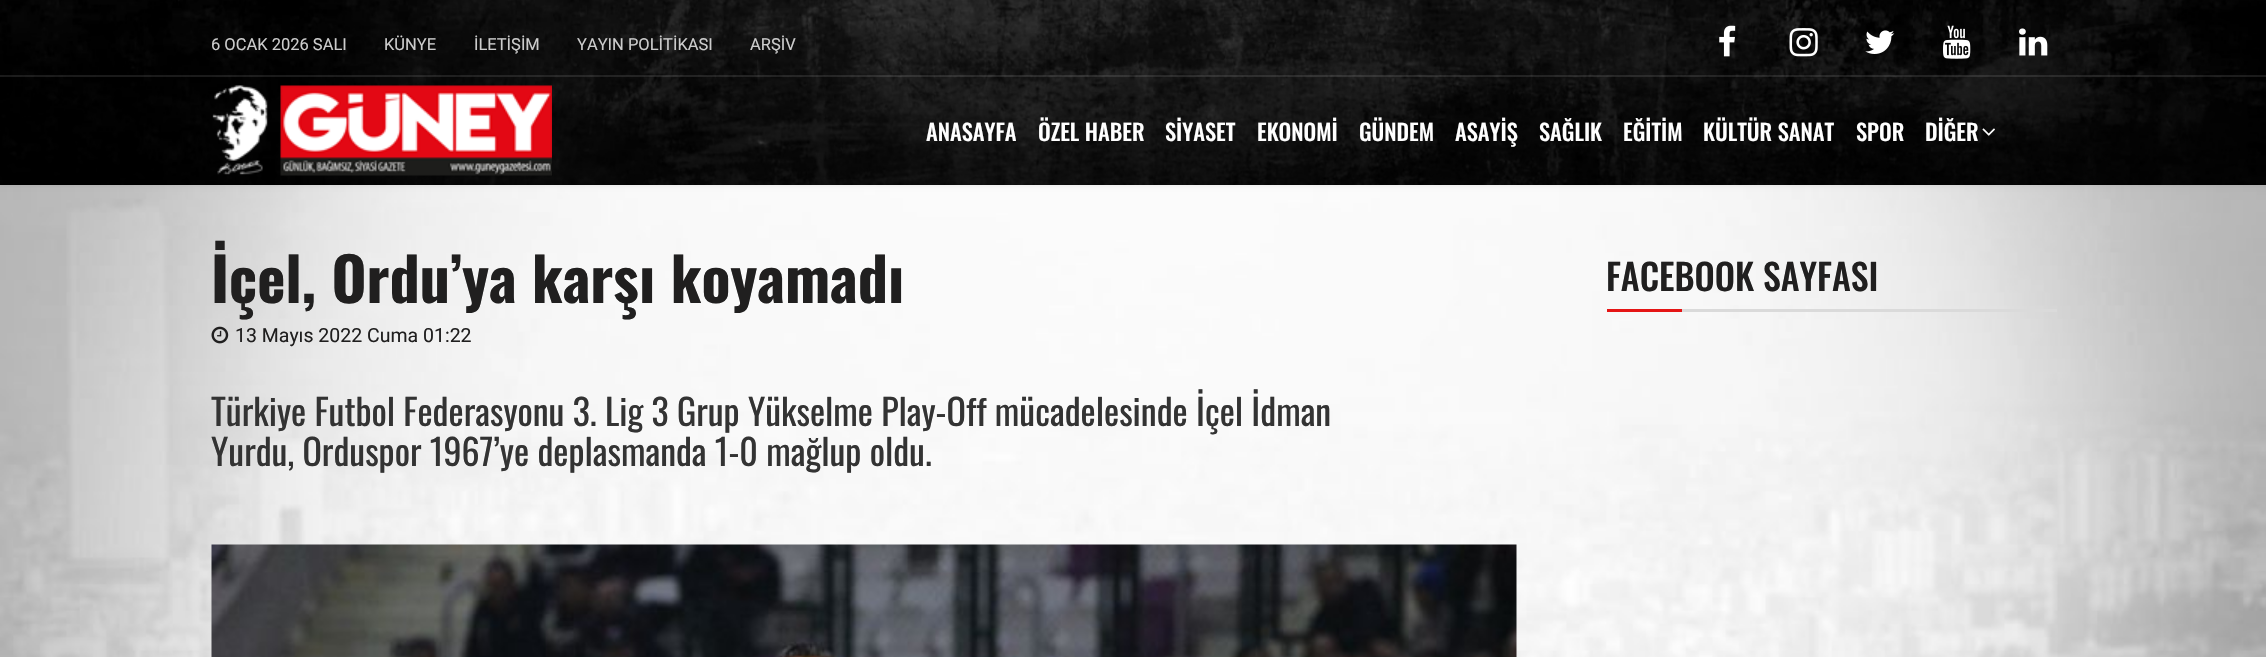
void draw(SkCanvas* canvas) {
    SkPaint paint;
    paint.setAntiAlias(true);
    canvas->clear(0xFFFFFFFF);
    canvas->drawImageRect(SkImages::DeferredFromEncodedData(SkData::MakeFromFileName("img1.png")), SkRect::MakeXYWH(0, 185, 2266, 472), SkSamplingOptions());
    paint.setColor(0x0F000000);
    paint.setMaskFilter(SkMaskFilter::MakeBlur(kNormal_SkBlurStyle, 2));
    canvas->drawRect(SkRect::MakeXYWH(0, 2, 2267, 184), paint);
    paint.setMaskFilter(nullptr);
    canvas->drawImageRect(SkImages::DeferredFromEncodedData(SkData::MakeFromFileName("img2.png")), SkRect::MakeXYWH(0, 0, 2266, 185), SkSamplingOptions());
    paint.setColor(0x1AFFFFFF);
    canvas->drawRect(SkRect::MakeXYWH(0, 75, 2266, 2), paint);
    SkFont font1(fontMgr->matchFamilyStyle("Roboto", SkFontStyle::Normal()), 16.5f);
    font1.setSubpixel(true);
    paint.setColor(0xFFCCCCCC);
    canvas->drawString("6 OCAK 2026 SALI", 211, 50, font1, paint);
    canvas->drawString("KÜNYE", 384, 50, font1, paint);
    canvas->drawString("İLETİŞİM", 474, 50, font1, paint);
    canvas->drawString("YAYIN POLİTİKASI", 577, 50, font1, paint);
    canvas->drawString("ARŞİV", 750, 50, font1, paint);
    canvas->drawImageRect(SkImages::DeferredFromEncodedData(SkData::MakeFromFileName("img3.png")), SkRect::MakeXYWH(1719, 25, 17, 32), SkSamplingOptions());
    canvas->drawImageRect(SkImages::DeferredFromEncodedData(SkData::MakeFromFileName("img4.png")), SkRect::MakeXYWH(1789, 28, 29, 29), SkSamplingOptions());
    canvas->drawImageRect(SkImages::DeferredFromEncodedData(SkData::MakeFromFileName("img5.png")), SkRect::MakeXYWH(1865, 30, 30, 24), SkSamplingOptions());
    canvas->drawImageRect(SkImages::DeferredFromEncodedData(SkData::MakeFromFileName("img6.png")), SkRect::MakeXYWH(1943, 25, 28, 34), SkSamplingOptions());
    canvas->drawImageRect(SkImages::DeferredFromEncodedData(SkData::MakeFromFileName("img7.png")), SkRect::MakeXYWH(2019, 28, 29, 28), SkSamplingOptions());
    canvas->drawImageRect(SkImages::DeferredFromEncodedData(SkData::MakeFromFileName("img8.png")), SkRect::MakeXYWH(212, 85, 340, 91), SkSamplingOptions());
    SkFont font2(fontMgr->matchFamilyStyle("Oswald", SkFontStyle(500, SkFontStyle::kNormal_Width, SkFontStyle::kUpright_Slant)), 22.5f);
    font2.setSubpixel(true);
    paint.setColor(0xFFFFFFFF);
    canvas->drawString("ANASAYFA", 926, 141, font2, paint);
    canvas->drawString("ÖZEL HABER", 1038, 141, font2, paint);
    canvas->drawString("SİYASET", 1165, 141, font2, paint);
    canvas->drawString("EKONOMİ", 1257, 141, font2, paint);
    canvas->drawString("GÜNDEM", 1359, 141, font2, paint);
    canvas->drawString("ASAYİŞ", 1455, 141, font2, paint);
    canvas->drawString("SAĞLIK", 1539, 141, font2, paint);
    canvas->drawString("EĞİTİM", 1623, 141, font2, paint);
    canvas->drawString("KÜLTÜR SANAT", 1703, 141, font2, paint);
    canvas->drawString("SPOR", 1856, 141, font2, paint);
    canvas->drawString("DİĞER", 1925, 141, font2, paint);
    canvas->drawImageRect(SkImages::DeferredFromEncodedData(SkData::MakeFromFileName("img9.png")), SkRect::MakeXYWH(1982, 128, 13, 8), SkSamplingOptions());
    SkFont font3(fontMgr->matchFamilyStyle("Oswald", SkFontStyle::Bold()), 60);
    font3.setSubpixel(true);
    paint.setColor(0xFF201F1F);
    canvas->drawString("İçel, Ordu’ya karşı koyamadı", 211, 303, font3, paint);
    canvas->drawImageRect(SkImages::DeferredFromEncodedData(SkData::MakeFromFileName("img10.png")), SkRect::MakeXYWH(211, 326, 18, 18), SkSamplingOptions());
    SkFont font4(fontMgr->matchFamilyStyle("Roboto", SkFontStyle::Normal()), 19.5f);
    font4.setSubpixel(true);
    canvas->drawString("13 Mayıs 2022 Cuma 01:22", 235, 342, font4, paint);
    paint.setColor(0xFFDADADA);
    canvas->drawRect(SkRect::MakeXYWH(1682, 309, 375, 3), paint);
    SkFont font5(fontMgr->matchFamilyStyle("Oswald", SkFontStyle(500, SkFontStyle::kNormal_Width, SkFontStyle::kUpright_Slant)), 36);
    font5.setSubpixel(true);
    paint.setColor(0xFF201F1F);
    canvas->drawString("FACEBOOK SAYFASI", 1606, 291, font5, paint);
    paint.setColor(0xFFE51515);
    canvas->drawRect(SkRect::MakeXYWH(1607, 309, 75, 3), paint);
    SkFont font6(fontMgr->matchFamilyStyle("Oswald", SkFontStyle::Normal()), 36);
    font6.setSubpixel(true);
    paint.setColor(0xFF333333);
    canvas->drawString("Türkiye Futbol Federasyonu 3. Lig 3 Grup Yükselme Play-Off mücadelesinde İçel İdman", 211, 426, font6, paint);
    canvas->drawString("Yurdu, Orduspor 1967’ye deplasmanda 1-0 mağlup oldu.", 211, 466, font6, paint);
    canvas->drawImageRect(SkImages::DeferredFromEncodedData(SkData::MakeFromFileName("img11.png")), SkRect::MakeXYWH(211, 544, 1306, 113), SkSamplingOptions());
}
